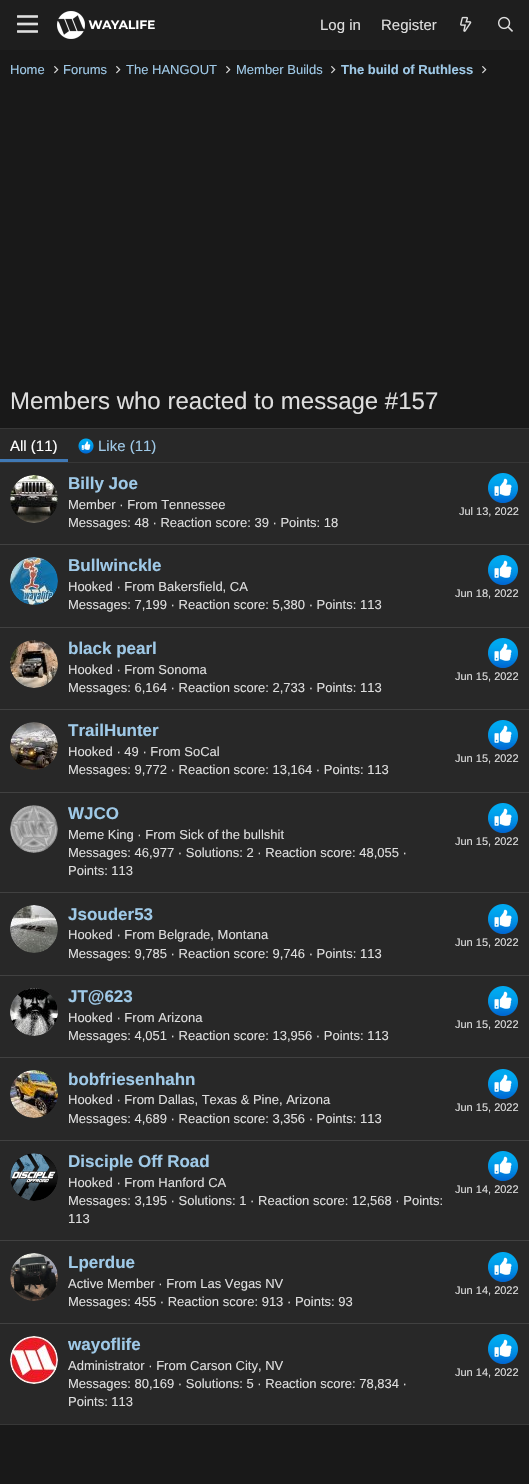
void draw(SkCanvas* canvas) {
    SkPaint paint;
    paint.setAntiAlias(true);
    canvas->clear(0xFF191919);
    paint.setColor(0xFF1E1E1E);
    canvas->drawRect(SkRect::MakeXYWH(0, 0, 529, 50), paint);
    canvas->drawImageRect(SkImages::DeferredFromEncodedData(SkData::MakeFromFileName("img1.png")), SkRect::MakeXYWH(17, 15, 21, 18), SkSamplingOptions());
    canvas->drawImageRect(SkImages::DeferredFromEncodedData(SkData::MakeFromFileName("img2.png")), SkRect::MakeXYWH(57, 11, 98, 28), SkSamplingOptions());
    SkFont font1(fontMgr->matchFamilyStyle("Liberation Sans", SkFontStyle::Normal()), 15);
    font1.setSubpixel(true);
    paint.setColor(0xFFDEDEDE);
    canvas->drawString("Log in", 320, 30, font1, paint);
    canvas->drawString("Register", 381, 30, font1, paint);
    canvas->drawImageRect(SkImages::DeferredFromEncodedData(SkData::MakeFromFileName("img3.png")), SkRect::MakeXYWH(460, 16, 12, 16), SkSamplingOptions());
    canvas->drawImageRect(SkImages::DeferredFromEncodedData(SkData::MakeFromFileName("img4.png")), SkRect::MakeXYWH(498, 16, 15, 16), SkSamplingOptions());
    SkFont font2(fontMgr->matchFamilyStyle("Liberation Sans", SkFontStyle::Normal()), 13);
    font2.setSubpixel(true);
    paint.setColor(0xFF9FC9E7);
    canvas->drawString("Home", 10, 74, font2, paint);
    canvas->drawImageRect(SkImages::DeferredFromEncodedData(SkData::MakeFromFileName("img5.png")), SkRect::MakeXYWH(54, 66, 5, 8), SkSamplingOptions());
    canvas->drawString("Forums", 63, 74, font2, paint);
    canvas->drawImageRect(SkImages::DeferredFromEncodedData(SkData::MakeFromFileName("img5.png")), SkRect::MakeXYWH(116, 66, 5, 8), SkSamplingOptions());
    canvas->drawString("The HANGOUT", 126, 74, font2, paint);
    canvas->drawImageRect(SkImages::DeferredFromEncodedData(SkData::MakeFromFileName("img5.png")), SkRect::MakeXYWH(226, 66, 5, 8), SkSamplingOptions());
    canvas->drawString("Member Builds", 236, 74, font2, paint);
    canvas->drawImageRect(SkImages::DeferredFromEncodedData(SkData::MakeFromFileName("img5.png")), SkRect::MakeXYWH(331, 66, 5, 8), SkSamplingOptions());
    SkFont font3(fontMgr->matchFamilyStyle("Liberation Sans", SkFontStyle::Bold()), 13);
    font3.setSubpixel(true);
    canvas->drawString("The build of Ruthless", 341, 74, font3, paint);
    canvas->drawImageRect(SkImages::DeferredFromEncodedData(SkData::MakeFromFileName("img5.png")), SkRect::MakeXYWH(482, 66, 5, 8), SkSamplingOptions());
    SkFont font4(fontMgr->matchFamilyStyle("Liberation Sans", SkFontStyle::Normal()), 24);
    font4.setSubpixel(true);
    paint.setColor(0xFFDEDEDE);
    canvas->drawString("Members who reacted to message #157", 10, 409, font4, paint);
    paint.setColor(0xFF282828);
    canvas->drawRect(SkRect::MakeXYWH(0, 429, 529, 995), paint);
    paint.setColor(0xFF373737);
    canvas->drawRect(SkRect::MakeXYWH(0, 428, 529, 1), paint);
    canvas->drawRect(SkRect::MakeXYWH(0, 1424, 529, 1), paint);
    canvas->drawRect(SkRect::MakeXYWH(0, 462, 529, 1), paint);
    paint.setColor(0xFF4079B5);
    canvas->drawRect(SkRect::MakeXYWH(0, 459, 68, 3), paint);
    paint.setColor(0xFFFFFFFF);
    canvas->drawString("All (11)", 10, 451, font1, paint);
    canvas->drawImageRect(SkImages::DeferredFromEncodedData(SkData::MakeFromFileName("img6.png")), SkRect::MakeXYWH(78, 438, 16, 16), SkSamplingOptions());
    paint.setColor(0xFF9FC9E7);
    canvas->drawString("Like (11)", 98, 451, font1, paint);
    canvas->drawImageRect(SkImages::DeferredFromEncodedData(SkData::MakeFromFileName("img7.png")), SkRect::MakeXYWH(10, 475, 48, 48), SkSamplingOptions());
    SkFont font5(fontMgr->matchFamilyStyle("Liberation Sans", SkFontStyle::Bold()), 17);
    font5.setSubpixel(true);
    canvas->drawString("Billy Joe", 68, 489, font5, paint);
    paint.setColor(0xFFDEDEDE);
    canvas->drawString("Member · From Tennessee", 68, 509, font2, paint);
    canvas->drawImageRect(SkImages::DeferredFromEncodedData(SkData::MakeFromFileName("img8.png")), SkRect::MakeXYWH(488, 473, 30, 30), SkSamplingOptions());
    SkFont font6(fontMgr->matchFamilyStyle("Liberation Sans", SkFontStyle::Normal()), 11);
    font6.setSubpixel(true);
    canvas->drawString("Jul 13, 2022", 459, 515, font6, paint);
    canvas->drawString("Messages: 48 · Reaction score: 39 · Points: 18", 68, 527, font2, paint);
    paint.setColor(0xFF414141);
    canvas->drawRect(SkRect::MakeXYWH(0, 544, 529, 1), paint);
    canvas->drawImageRect(SkImages::DeferredFromEncodedData(SkData::MakeFromFileName("img9.png")), SkRect::MakeXYWH(10, 557, 48, 48), SkSamplingOptions());
    paint.setColor(0xFF9FC9E7);
    canvas->drawString("Bullwinckle", 68, 571, font5, paint);
    paint.setColor(0xFFDEDEDE);
    canvas->drawString("Hooked · From Bakersfield, CA", 68, 591, font2, paint);
    canvas->drawImageRect(SkImages::DeferredFromEncodedData(SkData::MakeFromFileName("img8.png")), SkRect::MakeXYWH(488, 555, 30, 30), SkSamplingOptions());
    canvas->drawString("Jun 18, 2022", 455, 597, font6, paint);
    canvas->drawString("Messages: 7,199 · Reaction score: 5,380 · Points: 113", 68, 609, font2, paint);
    paint.setColor(0xFF414141);
    canvas->drawRect(SkRect::MakeXYWH(0, 627, 529, 1), paint);
    canvas->drawImageRect(SkImages::DeferredFromEncodedData(SkData::MakeFromFileName("img10.png")), SkRect::MakeXYWH(10, 640, 48, 48), SkSamplingOptions());
    paint.setColor(0xFF9FC9E7);
    canvas->drawString("black pearl", 68, 654, font5, paint);
    paint.setColor(0xFFDEDEDE);
    canvas->drawString("Hooked · From Sonoma", 68, 674, font2, paint);
    canvas->drawImageRect(SkImages::DeferredFromEncodedData(SkData::MakeFromFileName("img8.png")), SkRect::MakeXYWH(488, 638, 30, 30), SkSamplingOptions());
    canvas->drawString("Jun 15, 2022", 455, 680, font6, paint);
    canvas->drawString("Messages: 6,164 · Reaction score: 2,733 · Points: 113", 68, 692, font2, paint);
    paint.setColor(0xFF414141);
    canvas->drawRect(SkRect::MakeXYWH(0, 709, 529, 1), paint);
    canvas->drawImageRect(SkImages::DeferredFromEncodedData(SkData::MakeFromFileName("img11.png")), SkRect::MakeXYWH(10, 722, 48, 48), SkSamplingOptions());
    paint.setColor(0xFF9FC9E7);
    canvas->drawString("TrailHunter", 68, 736, font5, paint);
    paint.setColor(0xFFDEDEDE);
    canvas->drawString("Hooked · 49 · From SoCal", 68, 756, font2, paint);
    canvas->drawImageRect(SkImages::DeferredFromEncodedData(SkData::MakeFromFileName("img8.png")), SkRect::MakeXYWH(488, 720, 30, 30), SkSamplingOptions());
    canvas->drawString("Jun 15, 2022", 455, 762, font6, paint);
    canvas->drawString("Messages: 9,772 · Reaction score: 13,164 · Points: 113", 68, 774, font2, paint);
    paint.setColor(0xFF414141);
    canvas->drawRect(SkRect::MakeXYWH(0, 792, 529, 1), paint);
    canvas->drawImageRect(SkImages::DeferredFromEncodedData(SkData::MakeFromFileName("img12.png")), SkRect::MakeXYWH(10, 805, 48, 48), SkSamplingOptions());
    paint.setColor(0xFF9FC9E7);
    canvas->drawString("WJCO", 68, 819, font5, paint);
    paint.setColor(0xFFDEDEDE);
    canvas->drawString("Meme King · From Sick of the bullshit", 68, 839, font2, paint);
    canvas->drawImageRect(SkImages::DeferredFromEncodedData(SkData::MakeFromFileName("img8.png")), SkRect::MakeXYWH(488, 803, 30, 30), SkSamplingOptions());
    canvas->drawString("Jun 15, 2022", 455, 845, font6, paint);
    canvas->drawString("Messages: 46,977 · Solutions: 2 · Reaction score: 48,055 ·", 68, 857, font2, paint);
    canvas->drawString("Points: 113", 68, 875, font2, paint);
    paint.setColor(0xFF414141);
    canvas->drawRect(SkRect::MakeXYWH(0, 892, 529, 1), paint);
    canvas->drawImageRect(SkImages::DeferredFromEncodedData(SkData::MakeFromFileName("img13.png")), SkRect::MakeXYWH(10, 905, 48, 48), SkSamplingOptions());
    paint.setColor(0xFF9FC9E7);
    canvas->drawString("Jsouder53", 68, 920, font5, paint);
    paint.setColor(0xFFDEDEDE);
    canvas->drawString("Hooked · From Belgrade, Montana", 68, 939, font2, paint);
    canvas->drawImageRect(SkImages::DeferredFromEncodedData(SkData::MakeFromFileName("img8.png")), SkRect::MakeXYWH(488, 904, 30, 30), SkSamplingOptions());
    canvas->drawString("Jun 15, 2022", 455, 946, font6, paint);
    canvas->drawString("Messages: 9,785 · Reaction score: 9,746 · Points: 113", 68, 958, font2, paint);
    paint.setColor(0xFF414141);
    canvas->drawRect(SkRect::MakeXYWH(0, 975, 529, 1), paint);
    canvas->drawImageRect(SkImages::DeferredFromEncodedData(SkData::MakeFromFileName("img14.png")), SkRect::MakeXYWH(10, 988, 48, 48), SkSamplingOptions());
    paint.setColor(0xFF9FC9E7);
    canvas->drawString("JT@623", 68, 1002, font5, paint);
    paint.setColor(0xFFDEDEDE);
    canvas->drawString("Hooked · From Arizona", 68, 1022, font2, paint);
    canvas->drawImageRect(SkImages::DeferredFromEncodedData(SkData::MakeFromFileName("img8.png")), SkRect::MakeXYWH(488, 986, 30, 30), SkSamplingOptions());
    canvas->drawString("Jun 15, 2022", 455, 1028, font6, paint);
    canvas->drawString("Messages: 4,051 · Reaction score: 13,956 · Points: 113", 68, 1040, font2, paint);
    paint.setColor(0xFF414141);
    canvas->drawRect(SkRect::MakeXYWH(0, 1057, 529, 1), paint);
    canvas->drawImageRect(SkImages::DeferredFromEncodedData(SkData::MakeFromFileName("img15.png")), SkRect::MakeXYWH(10, 1070, 48, 48), SkSamplingOptions());
    paint.setColor(0xFF9FC9E7);
    canvas->drawString("bobfriesenhahn", 68, 1085, font5, paint);
    paint.setColor(0xFFDEDEDE);
    canvas->drawString("Hooked · From Dallas, Texas & Pine, Arizona", 68, 1104, font2, paint);
    canvas->drawImageRect(SkImages::DeferredFromEncodedData(SkData::MakeFromFileName("img8.png")), SkRect::MakeXYWH(488, 1069, 30, 30), SkSamplingOptions());
    canvas->drawString("Jun 15, 2022", 455, 1111, font6, paint);
    canvas->drawString("Messages: 4,689 · Reaction score: 3,356 · Points: 113", 68, 1123, font2, paint);
    paint.setColor(0xFF414141);
    canvas->drawRect(SkRect::MakeXYWH(0, 1140, 529, 1), paint);
    canvas->drawImageRect(SkImages::DeferredFromEncodedData(SkData::MakeFromFileName("img16.png")), SkRect::MakeXYWH(10, 1153, 48, 48), SkSamplingOptions());
    paint.setColor(0xFF9FC9E7);
    canvas->drawString("Disciple Off Road", 68, 1167, font5, paint);
    paint.setColor(0xFFDEDEDE);
    canvas->drawString("Hooked · From Hanford CA", 68, 1187, font2, paint);
    canvas->drawImageRect(SkImages::DeferredFromEncodedData(SkData::MakeFromFileName("img8.png")), SkRect::MakeXYWH(488, 1151, 30, 30), SkSamplingOptions());
    canvas->drawString("Jun 14, 2022", 455, 1193, font6, paint);
    canvas->drawString("Messages: 3,195 · Solutions: 1 · Reaction score: 12,568 · Points:", 68, 1205, font2, paint);
    canvas->drawString("113", 68, 1223, font2, paint);
    paint.setColor(0xFF414141);
    canvas->drawRect(SkRect::MakeXYWH(0, 1240, 529, 1), paint);
    canvas->drawImageRect(SkImages::DeferredFromEncodedData(SkData::MakeFromFileName("img17.png")), SkRect::MakeXYWH(10, 1253, 48, 48), SkSamplingOptions());
    paint.setColor(0xFF9FC9E7);
    canvas->drawString("Lperdue", 68, 1268, font5, paint);
    paint.setColor(0xFFDEDEDE);
    canvas->drawString("Active Member · From Las Vegas NV", 68, 1288, font2, paint);
    canvas->drawImageRect(SkImages::DeferredFromEncodedData(SkData::MakeFromFileName("img8.png")), SkRect::MakeXYWH(488, 1252, 30, 30), SkSamplingOptions());
    canvas->drawString("Jun 14, 2022", 455, 1294, font6, paint);
    canvas->drawString("Messages: 455 · Reaction score: 913 · Points: 93", 68, 1306, font2, paint);
    paint.setColor(0xFF414141);
    canvas->drawRect(SkRect::MakeXYWH(0, 1323, 529, 1), paint);
    canvas->drawImageRect(SkImages::DeferredFromEncodedData(SkData::MakeFromFileName("img18.png")), SkRect::MakeXYWH(10, 1336, 48, 48), SkSamplingOptions());
    paint.setColor(0xFF9FC9E7);
    canvas->drawString("wayoflife", 68, 1350, font5, paint);
    paint.setColor(0xFFDEDEDE);
    canvas->drawString("Administrator · From Carson City, NV", 68, 1370, font2, paint);
    canvas->drawImageRect(SkImages::DeferredFromEncodedData(SkData::MakeFromFileName("img8.png")), SkRect::MakeXYWH(488, 1334, 30, 30), SkSamplingOptions());
    canvas->drawString("Jun 14, 2022", 455, 1376, font6, paint);
    canvas->drawString("Messages: 80,169 · Solutions: 5 · Reaction score: 78,834 ·", 68, 1388, font2, paint);
    canvas->drawString("Points: 113", 68, 1406, font2, paint);
}
